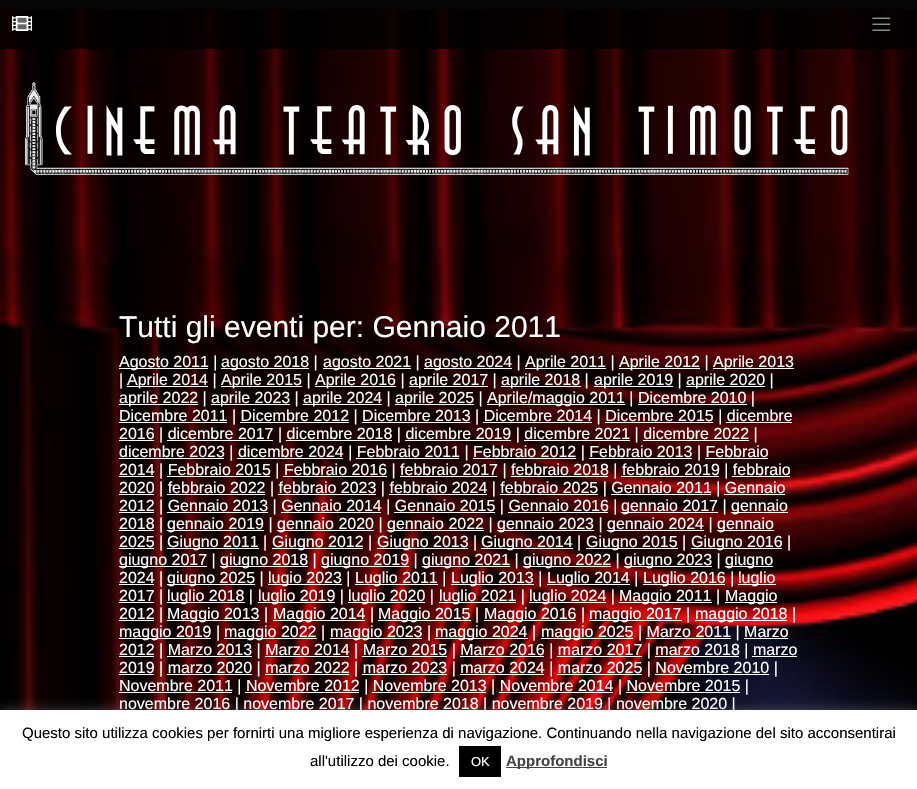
void draw(SkCanvas* canvas) {
    SkPaint paint;
    paint.setAntiAlias(true);
    canvas->clear(0xFF1A1A1A);
    canvas->drawImageRect(SkImages::DeferredFromEncodedData(SkData::MakeFromFileName("img5.png")), SkRect::MakeXYWH(0, 9, 917, 701), SkSamplingOptions());
    paint.setColor(0xCC000000);
    canvas->drawRect(SkRect::MakeXYWH(0, 0, 917, 49), paint);
    canvas->drawImageRect(SkImages::DeferredFromEncodedData(SkData::MakeFromFileName("img1.png")), SkRect::MakeXYWH(12, 16, 21, 15), SkSamplingOptions());
    canvas->drawImageRect(SkImages::DeferredFromEncodedData(SkData::MakeFromFileName("img2.png")), SkRect::MakeXYWH(17, 18, 10, 11), SkSamplingOptions());
    canvas->drawImageRect(SkImages::DeferredFromEncodedData(SkData::MakeFromFileName("img3.png")), SkRect::MakeXYWH(872, 17, 19, 14), SkSamplingOptions());
    canvas->drawImageRect(SkImages::DeferredFromEncodedData(SkData::MakeFromFileName("img4.png")), SkRect::MakeXYWH(25, 82, 824, 93), SkSamplingOptions());
    SkFont font1(fontMgr->matchFamilyStyle("Liberation Sans", SkFontStyle::Normal()), 30);
    font1.setSubpixel(true);
    paint.setColor(0xFFFFFFFF);
    canvas->drawString("Tutti gli eventi per: Gennaio 2011", 119, 337, font1, paint);
    canvas->drawRect(SkRect::MakeXYWH(119, 368, 89, 1), paint);
    SkFont font2(fontMgr->matchFamilyStyle("Liberation Sans", SkFontStyle::Normal()), 16);
    font2.setSubpixel(true);
    canvas->drawString("Agosto 2011 |", 119, 367, font2, paint);
    canvas->drawRect(SkRect::MakeXYWH(221, 368, 88, 1), paint);
    canvas->drawString("agosto 2018 |", 221, 367, font2, paint);
    canvas->drawRect(SkRect::MakeXYWH(323, 368, 88, 1), paint);
    canvas->drawString("agosto 2021 |", 323, 367, font2, paint);
    canvas->drawRect(SkRect::MakeXYWH(424, 368, 88, 1), paint);
    canvas->drawString("agosto 2024 |", 424, 367, font2, paint);
    canvas->drawRect(SkRect::MakeXYWH(525, 368, 81, 1), paint);
    canvas->drawString("Aprile 2011 |", 525, 367, font2, paint);
    canvas->drawRect(SkRect::MakeXYWH(619, 368, 81, 1), paint);
    canvas->drawString("Aprile 2012 |", 619, 367, font2, paint);
    canvas->drawRect(SkRect::MakeXYWH(713, 368, 81, 1), paint);
    canvas->drawString("Aprile 2013", 713, 367, font2, paint);
    canvas->drawString("|", 119, 385, font2, paint);
    canvas->drawRect(SkRect::MakeXYWH(127, 386, 81, 1), paint);
    canvas->drawString("Aprile 2014 |", 127, 385, font2, paint);
    canvas->drawRect(SkRect::MakeXYWH(221, 386, 81, 1), paint);
    canvas->drawString("Aprile 2015 |", 221, 385, font2, paint);
    canvas->drawRect(SkRect::MakeXYWH(315, 386, 81, 1), paint);
    canvas->drawString("Aprile 2016 |", 315, 385, font2, paint);
    canvas->drawRect(SkRect::MakeXYWH(409, 386, 79, 1), paint);
    canvas->drawString("aprile 2017 |", 409, 385, font2, paint);
    canvas->drawRect(SkRect::MakeXYWH(501, 386, 80, 1), paint);
    canvas->drawString("aprile 2018 |", 501, 385, font2, paint);
    canvas->drawRect(SkRect::MakeXYWH(594, 386, 79, 1), paint);
    canvas->drawString("aprile 2019 |", 594, 385, font2, paint);
    canvas->drawRect(SkRect::MakeXYWH(686, 386, 79, 1), paint);
    canvas->drawString("aprile 2020 |", 686, 385, font2, paint);
    canvas->drawRect(SkRect::MakeXYWH(119, 404, 79, 1), paint);
    canvas->drawString("aprile 2022 |", 119, 403, font2, paint);
    canvas->drawRect(SkRect::MakeXYWH(211, 404, 79, 1), paint);
    canvas->drawString("aprile 2023 |", 211, 403, font2, paint);
    canvas->drawRect(SkRect::MakeXYWH(303, 404, 79, 1), paint);
    canvas->drawString("aprile 2024 |", 303, 403, font2, paint);
    canvas->drawRect(SkRect::MakeXYWH(395, 404, 79, 1), paint);
    canvas->drawString("aprile 2025 |", 395, 403, font2, paint);
    canvas->drawRect(SkRect::MakeXYWH(487, 404, 138, 1), paint);
    canvas->drawString("Aprile/maggio 2011 | Dicembre 2010 |", 487, 403, font2, paint);
    canvas->drawRect(SkRect::MakeXYWH(638, 404, 109, 1), paint);
    canvas->drawRect(SkRect::MakeXYWH(119, 422, 108, 1), paint);
    canvas->drawString("Dicembre 2011 | Dicembre 2012 | Dicembre 2013 | Dicembre 2014 | Dicembre 2015 | dicembre", 119, 421, font2, paint);
    canvas->drawRect(SkRect::MakeXYWH(240, 422, 109, 1), paint);
    canvas->drawRect(SkRect::MakeXYWH(362, 422, 108, 1), paint);
    canvas->drawRect(SkRect::MakeXYWH(483, 422, 109, 1), paint);
    canvas->drawRect(SkRect::MakeXYWH(605, 422, 108, 1), paint);
    canvas->drawRect(SkRect::MakeXYWH(119, 440, 35, 1), paint);
    canvas->drawString("2016 | dicembre 2017 | dicembre 2018 | dicembre 2019 | dicembre 2021 | dicembre 2022 |", 119, 439, font2, paint);
    canvas->drawRect(SkRect::MakeXYWH(726, 422, 66, 1), paint);
    canvas->drawRect(SkRect::MakeXYWH(167, 440, 106, 1), paint);
    canvas->drawRect(SkRect::MakeXYWH(286, 440, 106, 1), paint);
    canvas->drawRect(SkRect::MakeXYWH(405, 440, 106, 1), paint);
    canvas->drawRect(SkRect::MakeXYWH(524, 440, 106, 1), paint);
    canvas->drawRect(SkRect::MakeXYWH(643, 440, 106, 1), paint);
    canvas->drawRect(SkRect::MakeXYWH(119, 458, 105, 1), paint);
    canvas->drawString("dicembre 2023 | dicembre 2024 | Febbraio 2011 | Febbraio 2012 | Febbraio 2013 | Febbraio", 119, 457, font2, paint);
    canvas->drawRect(SkRect::MakeXYWH(237, 458, 106, 1), paint);
    canvas->drawRect(SkRect::MakeXYWH(356, 458, 103, 1), paint);
    canvas->drawRect(SkRect::MakeXYWH(473, 458, 103, 1), paint);
    canvas->drawRect(SkRect::MakeXYWH(589, 458, 103, 1), paint);
    canvas->drawRect(SkRect::MakeXYWH(119, 476, 35, 1), paint);
    canvas->drawString("2014 | Febbraio 2015 | Febbraio 2016 | febbraio 2017 | febbraio 2018 | febbraio 2019 | febbraio", 119, 475, font2, paint);
    canvas->drawRect(SkRect::MakeXYWH(705, 458, 63, 1), paint);
    canvas->drawRect(SkRect::MakeXYWH(167, 476, 103, 1), paint);
    canvas->drawRect(SkRect::MakeXYWH(283, 476, 104, 1), paint);
    canvas->drawRect(SkRect::MakeXYWH(400, 476, 97, 1), paint);
    canvas->drawRect(SkRect::MakeXYWH(511, 476, 97, 1), paint);
    canvas->drawRect(SkRect::MakeXYWH(621, 476, 98, 1), paint);
    canvas->drawRect(SkRect::MakeXYWH(119, 494, 35, 1), paint);
    canvas->drawString("2020 | febbraio 2022 | febbraio 2023 | febbraio 2024 | febbraio 2025 | Gennaio 2011 | Gennaio", 119, 493, font2, paint);
    canvas->drawRect(SkRect::MakeXYWH(732, 476, 58, 1), paint);
    canvas->drawRect(SkRect::MakeXYWH(167, 494, 98, 1), paint);
    canvas->drawRect(SkRect::MakeXYWH(278, 494, 98, 1), paint);
    canvas->drawRect(SkRect::MakeXYWH(389, 494, 98, 1), paint);
    canvas->drawRect(SkRect::MakeXYWH(500, 494, 98, 1), paint);
    canvas->drawRect(SkRect::MakeXYWH(611, 494, 100, 1), paint);
    canvas->drawRect(SkRect::MakeXYWH(119, 512, 35, 1), paint);
    canvas->drawString("2012 | Gennaio 2013 | Gennaio 2014 | Gennaio 2015 | Gennaio 2016 |", 119, 511, font2, paint);
    canvas->drawRect(SkRect::MakeXYWH(724, 494, 61, 1), paint);
    canvas->drawRect(SkRect::MakeXYWH(621, 512, 97, 1), paint);
    canvas->drawString("gennaio 2017 |", 621, 511, font2, paint);
    canvas->drawRect(SkRect::MakeXYWH(731, 512, 57, 1), paint);
    canvas->drawString("gennaio", 731, 511, font2, paint);
    canvas->drawRect(SkRect::MakeXYWH(167, 512, 101, 1), paint);
    canvas->drawRect(SkRect::MakeXYWH(281, 512, 100, 1), paint);
    canvas->drawRect(SkRect::MakeXYWH(394, 512, 101, 1), paint);
    canvas->drawRect(SkRect::MakeXYWH(508, 512, 100, 1), paint);
    canvas->drawRect(SkRect::MakeXYWH(119, 530, 35, 1), paint);
    canvas->drawString("2018 |", 119, 529, font2, paint);
    canvas->drawRect(SkRect::MakeXYWH(167, 530, 97, 1), paint);
    canvas->drawString("gennaio 2019 |", 167, 529, font2, paint);
    canvas->drawRect(SkRect::MakeXYWH(277, 530, 97, 1), paint);
    canvas->drawString("gennaio 2020 |", 277, 529, font2, paint);
    canvas->drawRect(SkRect::MakeXYWH(387, 530, 97, 1), paint);
    canvas->drawString("gennaio 2022 |", 387, 529, font2, paint);
    canvas->drawRect(SkRect::MakeXYWH(497, 530, 97, 1), paint);
    canvas->drawString("gennaio 2023 |", 497, 529, font2, paint);
    canvas->drawRect(SkRect::MakeXYWH(607, 530, 97, 1), paint);
    canvas->drawString("gennaio 2024 |", 607, 529, font2, paint);
    canvas->drawRect(SkRect::MakeXYWH(717, 530, 57, 1), paint);
    canvas->drawString("gennaio", 717, 529, font2, paint);
    canvas->drawRect(SkRect::MakeXYWH(119, 548, 35, 1), paint);
    canvas->drawString("2025 |", 119, 547, font2, paint);
    canvas->drawRect(SkRect::MakeXYWH(167, 548, 92, 1), paint);
    canvas->drawString("Giugno 2011 |", 167, 547, font2, paint);
    canvas->drawRect(SkRect::MakeXYWH(272, 548, 91, 1), paint);
    canvas->drawString("Giugno 2012 |", 272, 547, font2, paint);
    canvas->drawRect(SkRect::MakeXYWH(377, 548, 91, 1), paint);
    canvas->drawString("Giugno 2013 |", 377, 547, font2, paint);
    canvas->drawRect(SkRect::MakeXYWH(481, 548, 92, 1), paint);
    canvas->drawString("Giugno 2014 |", 481, 547, font2, paint);
    canvas->drawRect(SkRect::MakeXYWH(586, 548, 92, 1), paint);
    canvas->drawString("Giugno 2015 |", 586, 547, font2, paint);
    canvas->drawRect(SkRect::MakeXYWH(691, 548, 91, 1), paint);
    canvas->drawString("Giugno 2016 |", 691, 547, font2, paint);
    canvas->drawRect(SkRect::MakeXYWH(119, 566, 88, 1), paint);
    canvas->drawString("giugno 2017 |", 119, 565, font2, paint);
    canvas->drawRect(SkRect::MakeXYWH(220, 566, 88, 1), paint);
    canvas->drawString("giugno 2018 |", 220, 565, font2, paint);
    canvas->drawRect(SkRect::MakeXYWH(321, 566, 88, 1), paint);
    canvas->drawString("giugno 2019 |", 321, 565, font2, paint);
    canvas->drawRect(SkRect::MakeXYWH(422, 566, 88, 1), paint);
    canvas->drawString("giugno 2021 |", 422, 565, font2, paint);
    canvas->drawRect(SkRect::MakeXYWH(523, 566, 88, 1), paint);
    canvas->drawString("giugno 2022 |", 523, 565, font2, paint);
    canvas->drawRect(SkRect::MakeXYWH(624, 566, 88, 1), paint);
    canvas->drawString("giugno 2023 |", 624, 565, font2, paint);
    canvas->drawRect(SkRect::MakeXYWH(725, 566, 48, 1), paint);
    canvas->drawString("giugno", 725, 565, font2, paint);
    canvas->drawRect(SkRect::MakeXYWH(119, 584, 35, 1), paint);
    canvas->drawString("2024 |", 119, 583, font2, paint);
    canvas->drawRect(SkRect::MakeXYWH(167, 584, 88, 1), paint);
    canvas->drawString("giugno 2025 |", 167, 583, font2, paint);
    canvas->drawRect(SkRect::MakeXYWH(268, 584, 74, 1), paint);
    canvas->drawString("lugio 2023 |", 268, 583, font2, paint);
    canvas->drawRect(SkRect::MakeXYWH(355, 584, 83, 1), paint);
    canvas->drawString("Luglio 2011 |", 355, 583, font2, paint);
    canvas->drawRect(SkRect::MakeXYWH(451, 584, 83, 1), paint);
    canvas->drawString("Luglio 2013 |", 451, 583, font2, paint);
    canvas->drawRect(SkRect::MakeXYWH(547, 584, 83, 1), paint);
    canvas->drawString("Luglio 2014 |", 547, 583, font2, paint);
    canvas->drawRect(SkRect::MakeXYWH(643, 584, 82, 1), paint);
    canvas->drawString("Luglio 2016 |", 643, 583, font2, paint);
    canvas->drawRect(SkRect::MakeXYWH(738, 584, 38, 1), paint);
    canvas->drawString("luglio", 738, 583, font2, paint);
    canvas->drawRect(SkRect::MakeXYWH(119, 602, 35, 1), paint);
    canvas->drawString("2017 |", 119, 601, font2, paint);
    canvas->drawRect(SkRect::MakeXYWH(167, 602, 78, 1), paint);
    canvas->drawString("luglio 2018 |", 167, 601, font2, paint);
    canvas->drawRect(SkRect::MakeXYWH(258, 602, 77, 1), paint);
    canvas->drawString("luglio 2019 |", 258, 601, font2, paint);
    canvas->drawRect(SkRect::MakeXYWH(348, 602, 77, 1), paint);
    canvas->drawString("luglio 2020 |", 348, 601, font2, paint);
    canvas->drawRect(SkRect::MakeXYWH(439, 602, 77, 1), paint);
    canvas->drawString("luglio 2021 |", 439, 601, font2, paint);
    canvas->drawRect(SkRect::MakeXYWH(529, 602, 77, 1), paint);
    canvas->drawString("luglio 2024 |", 529, 601, font2, paint);
    canvas->drawRect(SkRect::MakeXYWH(619, 602, 93, 1), paint);
    canvas->drawString("Maggio 2011 |", 619, 601, font2, paint);
    canvas->drawRect(SkRect::MakeXYWH(725, 602, 52, 1), paint);
    canvas->drawString("Maggio", 725, 601, font2, paint);
    canvas->drawRect(SkRect::MakeXYWH(119, 620, 35, 1), paint);
    canvas->drawString("2012 |", 119, 619, font2, paint);
    canvas->drawRect(SkRect::MakeXYWH(167, 620, 93, 1), paint);
    canvas->drawString("Maggio 2013 |", 167, 619, font2, paint);
    canvas->drawRect(SkRect::MakeXYWH(273, 620, 92, 1), paint);
    canvas->drawString("Maggio 2014 |", 273, 619, font2, paint);
    canvas->drawRect(SkRect::MakeXYWH(378, 620, 93, 1), paint);
    canvas->drawString("Maggio 2015 |", 378, 619, font2, paint);
    canvas->drawRect(SkRect::MakeXYWH(484, 620, 92, 1), paint);
    canvas->drawString("Maggio 2016 |", 484, 619, font2, paint);
    canvas->drawRect(SkRect::MakeXYWH(589, 620, 93, 1), paint);
    canvas->drawString("maggio 2017 |", 589, 619, font2, paint);
    canvas->drawRect(SkRect::MakeXYWH(695, 620, 92, 1), paint);
    canvas->drawString("maggio 2018 |", 695, 619, font2, paint);
    canvas->drawRect(SkRect::MakeXYWH(119, 638, 92, 1), paint);
    canvas->drawString("maggio 2019 |", 119, 637, font2, paint);
    canvas->drawRect(SkRect::MakeXYWH(224, 638, 93, 1), paint);
    canvas->drawString("maggio 2022 |", 224, 637, font2, paint);
    canvas->drawRect(SkRect::MakeXYWH(330, 638, 92, 1), paint);
    canvas->drawString("maggio 2023 |", 330, 637, font2, paint);
    canvas->drawRect(SkRect::MakeXYWH(435, 638, 93, 1), paint);
    canvas->drawString("maggio 2024 |", 435, 637, font2, paint);
    canvas->drawRect(SkRect::MakeXYWH(541, 638, 92, 1), paint);
    canvas->drawString("maggio 2025 | Marzo 2011 | Marzo", 541, 637, font2, paint);
    canvas->drawRect(SkRect::MakeXYWH(646, 638, 85, 1), paint);
    canvas->drawRect(SkRect::MakeXYWH(119, 656, 35, 1), paint);
    canvas->drawString("2012 | Marzo 2013 | Marzo 2014 | Marzo 2015 | Marzo 2016 | marzo 2017 | marzo 2018 | marzo", 119, 655, font2, paint);
    canvas->drawRect(SkRect::MakeXYWH(744, 638, 44, 1), paint);
    canvas->drawRect(SkRect::MakeXYWH(167, 656, 85, 1), paint);
    canvas->drawRect(SkRect::MakeXYWH(265, 656, 84, 1), paint);
    canvas->drawRect(SkRect::MakeXYWH(362, 656, 85, 1), paint);
    canvas->drawRect(SkRect::MakeXYWH(460, 656, 84, 1), paint);
    canvas->drawRect(SkRect::MakeXYWH(557, 656, 85, 1), paint);
    canvas->drawRect(SkRect::MakeXYWH(655, 656, 84, 1), paint);
    canvas->drawRect(SkRect::MakeXYWH(119, 674, 35, 1), paint);
    canvas->drawString("2019 | marzo 2020 | marzo 2022 | marzo 2023 | marzo 2024 | marzo 2025 | Novembre 2010 |", 119, 673, font2, paint);
    canvas->drawRect(SkRect::MakeXYWH(752, 656, 45, 1), paint);
    canvas->drawRect(SkRect::MakeXYWH(167, 674, 85, 1), paint);
    canvas->drawRect(SkRect::MakeXYWH(265, 674, 84, 1), paint);
    canvas->drawRect(SkRect::MakeXYWH(362, 674, 85, 1), paint);
    canvas->drawRect(SkRect::MakeXYWH(460, 674, 84, 1), paint);
    canvas->drawRect(SkRect::MakeXYWH(557, 674, 85, 1), paint);
    canvas->drawRect(SkRect::MakeXYWH(655, 674, 114, 1), paint);
    canvas->drawRect(SkRect::MakeXYWH(119, 692, 113, 1), paint);
    canvas->drawString("Novembre 2011 | Novembre 2012 | Novembre 2013 | Novembre 2014 | Novembre 2015 |", 119, 691, font2, paint);
    canvas->drawRect(SkRect::MakeXYWH(245, 692, 114, 1), paint);
    canvas->drawRect(SkRect::MakeXYWH(372, 692, 114, 1), paint);
    canvas->drawRect(SkRect::MakeXYWH(499, 692, 114, 1), paint);
    canvas->drawRect(SkRect::MakeXYWH(626, 692, 114, 1), paint);
    canvas->drawString("novembre 2016 | novembre 2017 | novembre 2018 | novembre 2019 | novembre 2020 |", 119, 709, font2, paint);
    paint.setColor(0x4DACABAB);
    paint.setMaskFilter(SkMaskFilter::MakeBlur(kNormal_SkBlurStyle, 5));
    canvas->drawRect(SkRect::MakeXYWH(0, 709, 917, 79), paint);
    paint.setMaskFilter(nullptr);
    paint.setColor(0xFFFFFFFF);
    canvas->drawRect(SkRect::MakeXYWH(0, 710, 917, 79), paint);
    SkFont font3(fontMgr->matchFamilyStyle("Liberation Sans", SkFontStyle::Normal()), 15);
    font3.setSubpixel(true);
    paint.setColor(0xFF000000);
    canvas->drawString("Questo sito utilizza cookies per fornirti una migliore esperienza di navigazione. Continuando nella navigazione del sito acconsentirai", 22, 738, font3, paint);
    canvas->drawString("all'utilizzo dei cookie.", 310, 766, font3, paint);
    canvas->drawRect(SkRect::MakeXYWH(459, 746, 42, 31), paint);
    SkFont font4(fontMgr->matchFamilyStyle("Liberation Sans", SkFontStyle::Normal()), 13);
    font4.setSubpixel(true);
    paint.setColor(0xFFFFFFFF);
    canvas->drawString("OK", 471, 766, font4, paint);
    paint.setColor(0xFF444444);
    canvas->drawRect(SkRect::MakeXYWH(506, 767, 101, 1), paint);
    SkFont font5(fontMgr->matchFamilyStyle("Liberation Sans", SkFontStyle::Bold()), 15);
    font5.setSubpixel(true);
    canvas->drawString("Approfondisci", 506, 766, font5, paint);
}
